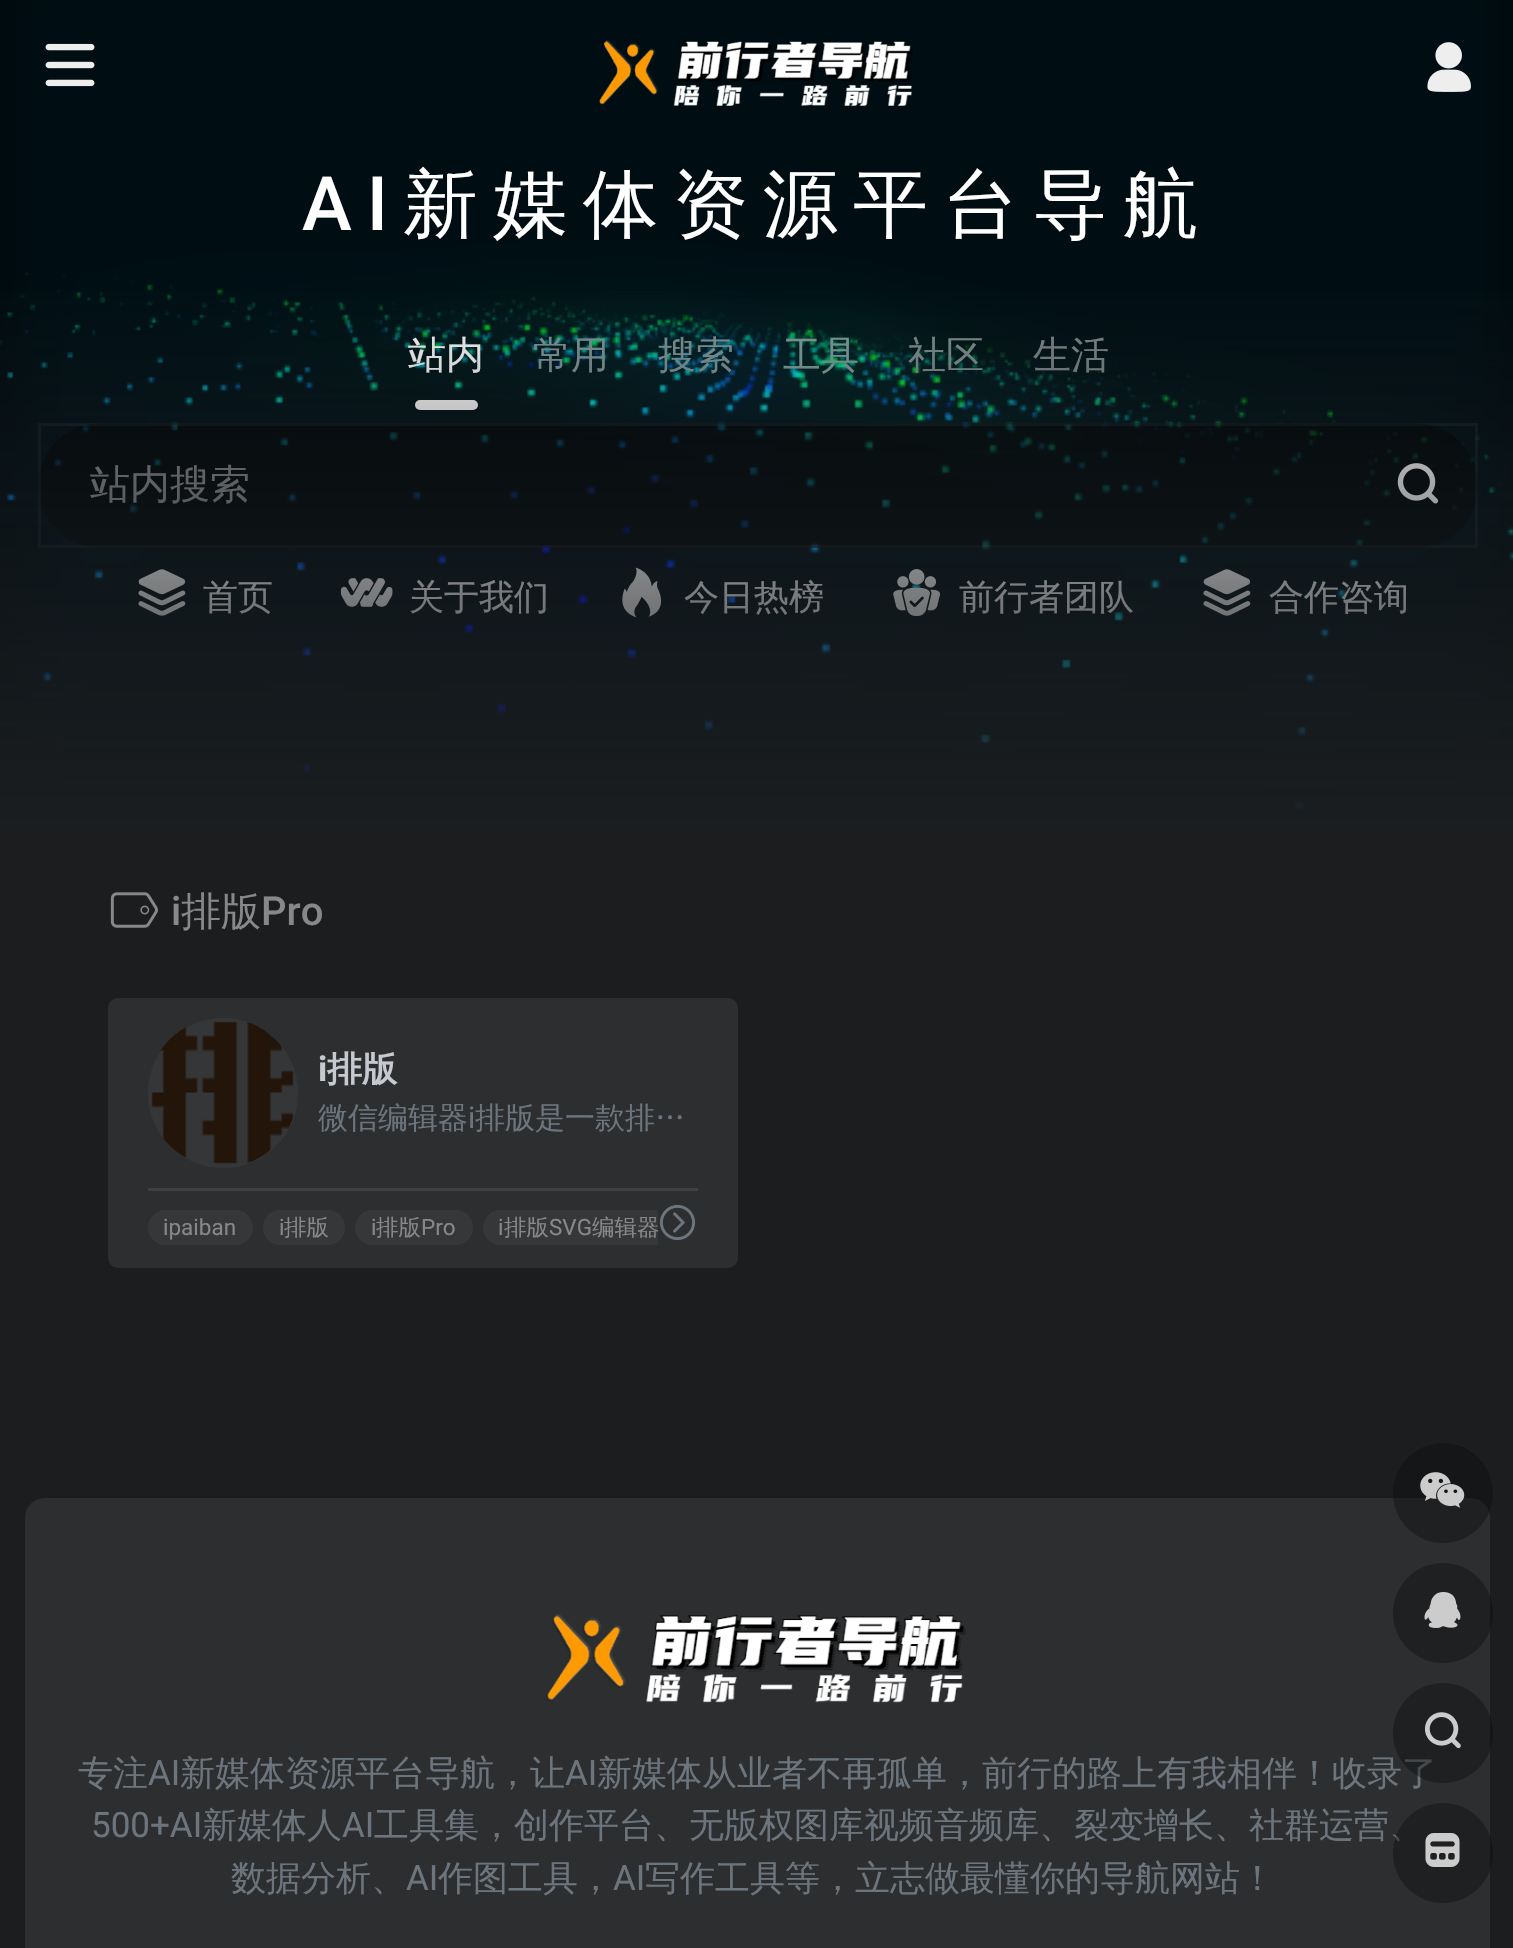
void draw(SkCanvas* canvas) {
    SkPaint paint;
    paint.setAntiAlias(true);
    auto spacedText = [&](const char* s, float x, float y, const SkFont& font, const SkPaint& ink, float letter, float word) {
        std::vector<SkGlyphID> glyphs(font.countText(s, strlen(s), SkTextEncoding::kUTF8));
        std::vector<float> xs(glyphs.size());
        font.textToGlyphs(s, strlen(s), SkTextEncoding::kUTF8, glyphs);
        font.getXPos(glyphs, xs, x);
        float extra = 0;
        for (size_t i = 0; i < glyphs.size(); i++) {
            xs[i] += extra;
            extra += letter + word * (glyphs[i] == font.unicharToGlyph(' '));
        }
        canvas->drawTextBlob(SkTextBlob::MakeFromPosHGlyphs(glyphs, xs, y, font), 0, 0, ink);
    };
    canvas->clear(0xFF1B1D1F);
    canvas->drawImageRect(SkImages::DeferredFromEncodedData(SkData::MakeFromFileName("img4.png")), SkRect::MakeXYWH(0, 0, 1513, 825), SkSamplingOptions());
    canvas->drawImageRect(SkImages::DeferredFromEncodedData(SkData::MakeFromFileName("img1.png")), SkRect::MakeXYWH(45, 43, 50, 44), SkSamplingOptions());
    canvas->drawImageRect(SkImages::DeferredFromEncodedData(SkData::MakeFromFileName("img2.png")), SkRect::MakeXYWH(599, 40, 315, 66), SkSamplingOptions());
    canvas->drawImageRect(SkImages::DeferredFromEncodedData(SkData::MakeFromFileName("img3.png")), SkRect::MakeXYWH(1427, 42, 44, 50), SkSamplingOptions());
    SkFont font1(fontMgr->matchFamilyStyle("Roboto", SkFontStyle(500, SkFontStyle::kNormal_Width, SkFontStyle::kUpright_Slant)), 75);
    font1.setSubpixel(true);
    paint.setColor(0xFFFFFFFF);
    spacedText("AI", 302, 230, font1, paint, 15, 0);
    SkFont font2(fontMgr->matchFamilyStyle("WenQuanYi Zen Hei", SkFontStyle(500, SkFontStyle::kNormal_Width, SkFontStyle::kUpright_Slant)), 75);
    font2.setSubpixel(true);
    spacedText("新媒体资源平台导航", 403, 230, font2, paint, 15, 0);
    SkFont font3(fontMgr->matchFamilyStyle("WenQuanYi Zen Hei", SkFontStyle(500, SkFontStyle::kNormal_Width, SkFontStyle::kUpright_Slant)), 38);
    font3.setSubpixel(true);
    canvas->drawString("站内", 408, 368, font3, paint);
    paint.setColor(0xFF80989A);
    canvas->drawString("常用", 533, 368, font3, paint);
    canvas->drawString("搜索", 658, 368, font3, paint);
    paint.setColor(0xFF80A29D);
    canvas->drawString("工具", 783, 368, font3, paint);
    paint.setColor(0xFF80908F);
    canvas->drawString("社区", 908, 368, font3, paint);
    paint.setColor(0xFF80888B);
    canvas->drawString("生活", 1033, 368, font3, paint);
    paint.setColor(0xFFFFFFFF);
    canvas->drawRoundRect(SkRect::MakeXYWH(415, 400, 63, 10), 5, 5, paint);
    paint.setColor(0x99000000);
    canvas->drawRoundRect(SkRect::MakeXYWH(38, 423, 1440, 125), 62.5f, 62.5f, paint);
    paint.setStyle(SkPaint::kStroke_Style);
    paint.setStrokeWidth(3);
    paint.setColor(0x0DFFFFFF);
    canvas->drawRect(SkRect::MakeXYWH(39.5f, 424.5f, 1437, 122), paint);
    SkFont font4(fontMgr->matchFamilyStyle("WenQuanYi Zen Hei", SkFontStyle(500, SkFontStyle::kNormal_Width, SkFontStyle::kUpright_Slant)), 40);
    font4.setSubpixel(true);
    paint.setStyle(SkPaint::kFill_Style);
    paint.setColor(0xFF888A8F);
    canvas->drawString("站内搜索", 90, 498, font4, paint);
    canvas->drawImageRect(SkImages::DeferredFromEncodedData(SkData::MakeFromFileName("img5.png")), SkRect::MakeXYWH(1397, 463, 42, 41), SkSamplingOptions());
    canvas->drawImageRect(SkImages::DeferredFromEncodedData(SkData::MakeFromFileName("img6.png")), SkRect::MakeXYWH(138, 569, 48, 47), SkSamplingOptions());
    SkFont font5(fontMgr->matchFamilyStyle("WenQuanYi Zen Hei", SkFontStyle(500, SkFontStyle::kNormal_Width, SkFontStyle::kUpright_Slant)), 35);
    font5.setSubpixel(true);
    paint.setColor(0xFFFFFFFF);
    canvas->drawString("首页", 203, 609, font5, paint);
    canvas->drawImageRect(SkImages::DeferredFromEncodedData(SkData::MakeFromFileName("img7.png")), SkRect::MakeXYWH(340, 578, 53, 29), SkSamplingOptions());
    canvas->drawString("关于我们", 409, 609, font5, paint);
    canvas->drawImageRect(SkImages::DeferredFromEncodedData(SkData::MakeFromFileName("img8.png")), SkRect::MakeXYWH(622, 567, 40, 51), SkSamplingOptions());
    canvas->drawString("今日热榜", 684, 609, font5, paint);
    canvas->drawImageRect(SkImages::DeferredFromEncodedData(SkData::MakeFromFileName("img9.png")), SkRect::MakeXYWH(893, 569, 47, 47), SkSamplingOptions());
    canvas->drawString("前行者团队", 959, 609, font5, paint);
    canvas->drawImageRect(SkImages::DeferredFromEncodedData(SkData::MakeFromFileName("img10.png")), SkRect::MakeXYWH(1203, 569, 48, 47), SkSamplingOptions());
    canvas->drawString("合作咨询", 1269, 609, font5, paint);
    {
        const SkColor colors[] = {0xFF1B1D1F, 0x001B1D1F};
        const float stops[] = {0, 0.8f};
        const SkPoint ends[] = {{758, 828}, {758, 128}};
        paint.setShader(SkGradientShader::MakeLinear(ends, colors, stops, 2, SkTileMode::kClamp));
        paint.setAlpha(255);
    }
    canvas->drawRect(SkRect::MakeXYWH(0, 291, 1513, 534), paint);
    canvas->drawImageRect(SkImages::DeferredFromEncodedData(SkData::MakeFromFileName("img11.png")), SkRect::MakeXYWH(110, 892, 48, 36), SkSamplingOptions());
    SkFont font6(fontMgr->matchFamilyStyle("Roboto", SkFontStyle(500, SkFontStyle::kNormal_Width, SkFontStyle::kUpright_Slant)), 40);
    font6.setSubpixel(true);
    paint.setShader(nullptr);
    paint.setColor(0xFF888888);
    canvas->drawString("i", 171, 925, font6, paint);
    canvas->drawString("排版", 181, 925, font4, paint);
    canvas->drawString("Pro", 261, 925, font6, paint);
    paint.setColor(0xFF2C2E2F);
    canvas->drawRoundRect(SkRect::MakeXYWH(108, 998, 630, 270), 10, 10, paint);
    paint.setColor(0xFF343637);
    canvas->drawCircle(223, 1093, 75, paint);
    canvas->drawImageRect(SkImages::DeferredFromEncodedData(SkData::MakeFromFileName("img12.png")), SkRect::MakeXYWH(151, 1021, 143, 143), SkSamplingOptions());
    SkFont font7(fontMgr->matchFamilyStyle("Roboto", SkFontStyle::Bold()), 35);
    font7.setSubpixel(true);
    paint.setColor(0xFFC6C9CF);
    canvas->drawString("i", 318, 1081, font7, paint);
    SkFont font8(fontMgr->matchFamilyStyle("WenQuanYi Zen Hei", SkFontStyle::Bold()), 35);
    font8.setSubpixel(true);
    canvas->drawString("排版", 327, 1081, font8, paint);
    SkFont font9(fontMgr->matchFamilyStyle("WenQuanYi Zen Hei", SkFontStyle(500, SkFontStyle::kNormal_Width, SkFontStyle::kUpright_Slant)), 30);
    font9.setSubpixel(true);
    paint.setColor(0xFF6C757D);
    canvas->drawString("微信编辑器", 318, 1128, font9, paint);
    SkFont font10(fontMgr->matchFamilyStyle("Roboto", SkFontStyle::Normal()), 30);
    font10.setSubpixel(true);
    canvas->drawString("i", 468, 1128, font10, paint);
    canvas->drawString("排版是一款排…", 475, 1128, font9, paint);
    paint.setColor(0xFF3E4041);
    canvas->drawRect(SkRect::MakeXYWH(148, 1188, 550, 3), paint);
    paint.setColor(0xFF353738);
    canvas->drawRoundRect(SkRect::MakeXYWH(148, 1210, 105, 35), 17.5f, 17.5f, paint);
    SkFont font11(fontMgr->matchFamilyStyle("Roboto", SkFontStyle::Normal()), 22.5f);
    font11.setSubpixel(true);
    paint.setColor(0xFF888888);
    canvas->drawString("ipaiban", 163, 1235, font11, paint);
    paint.setColor(0xFF353738);
    canvas->drawRoundRect(SkRect::MakeXYWH(263, 1210, 82, 35), 17.5f, 17.5f, paint);
    paint.setColor(0xFF888888);
    canvas->drawString("i", 279, 1235, font11, paint);
    SkFont font12(fontMgr->matchFamilyStyle("WenQuanYi Zen Hei", SkFontStyle(500, SkFontStyle::kNormal_Width, SkFontStyle::kUpright_Slant)), 22.5f);
    font12.setSubpixel(true);
    canvas->drawString("排版", 284, 1235, font12, paint);
    paint.setColor(0xFF353738);
    canvas->drawRoundRect(SkRect::MakeXYWH(355, 1210, 118, 35), 17.5f, 17.5f, paint);
    paint.setColor(0xFF888888);
    canvas->drawString("i", 371, 1235, font11, paint);
    canvas->drawString("排版", 376, 1235, font12, paint);
    canvas->drawString("Pro", 421, 1235, font11, paint);
    canvas->drawImageRect(SkImages::DeferredFromEncodedData(SkData::MakeFromFileName("img13.png")), SkRect::MakeXYWH(659, 1204, 37, 37), SkSamplingOptions());
    canvas->save();
    canvas->clipRect(SkRect::MakeXYWH(148, 1193, 510, 65));
    paint.setColor(0xFF353738);
    canvas->drawRoundRect(SkRect::MakeXYWH(483, 1210, 192, 35), 17.5f, 17.5f, paint);
    canvas->restore();
    paint.setColor(0xFF888888);
    canvas->drawString("i", 498, 1235, font11, paint);
    canvas->drawString("排版", 504, 1235, font12, paint);
    canvas->drawString("SVG", 549, 1235, font11, paint);
    canvas->drawString("编辑器", 592, 1235, font12, paint);
    paint.setColor(0xFF2C2E2F);
    canvas->drawRoundRect(SkRect::MakeXYWH(25, 1498, 1465, 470), 20, 20, paint);
    canvas->drawImageRect(SkImages::DeferredFromEncodedData(SkData::MakeFromFileName("img14.png")), SkRect::MakeXYWH(546, 1614, 420, 89), SkSamplingOptions());
    paint.setColor(0xFF6C757D);
    canvas->drawString("专注", 78, 1785, font5, paint);
    SkFont font13(fontMgr->matchFamilyStyle("Roboto", SkFontStyle::Normal()), 35);
    font13.setSubpixel(true);
    canvas->drawString("AI", 148, 1785, font13, paint);
    canvas->drawString("新媒体资源平台导航，让", 180, 1785, font5, paint);
    canvas->drawString("AI", 565, 1785, font13, paint);
    canvas->drawString("新媒体从业者不再孤单，前行的路上有我相伴！收录了", 597, 1785, font5, paint);
    canvas->drawString("500+AI", 91, 1837, font13, paint);
    canvas->drawString("新媒体人", 202, 1837, font5, paint);
    canvas->drawString("AI", 342, 1837, font13, paint);
    canvas->drawString("工具集，创作平台、无版权图库视频音频库、裂变增长、社群运营、", 374, 1837, font5, paint);
    canvas->drawString("数据分析、", 231, 1890, font5, paint);
    canvas->drawString("AI", 406, 1890, font13, paint);
    canvas->drawString("作图工具，", 438, 1890, font5, paint);
    canvas->drawString("AI", 613, 1890, font13, paint);
    canvas->drawString("写作工具等，立志做最懂你的导航网站！", 645, 1890, font5, paint);
    paint.setColor(0x660A0A0A);
    canvas->drawCircle(1443, 1493, 50, paint);
    canvas->drawImageRect(SkImages::DeferredFromEncodedData(SkData::MakeFromFileName("img15.png")), SkRect::MakeXYWH(1420, 1472, 45, 36), SkSamplingOptions());
    canvas->drawCircle(1443, 1613, 50, paint);
    canvas->drawImageRect(SkImages::DeferredFromEncodedData(SkData::MakeFromFileName("img16.png")), SkRect::MakeXYWH(1424, 1592, 37, 36), SkSamplingOptions());
    canvas->drawCircle(1443, 1733, 50, paint);
    canvas->drawImageRect(SkImages::DeferredFromEncodedData(SkData::MakeFromFileName("img17.png")), SkRect::MakeXYWH(1425, 1712, 36, 37), SkSamplingOptions());
    canvas->drawCircle(1443, 1853, 50, paint);
    canvas->drawImageRect(SkImages::DeferredFromEncodedData(SkData::MakeFromFileName("img18.png")), SkRect::MakeXYWH(1425, 1833, 35, 34), SkSamplingOptions());
}
